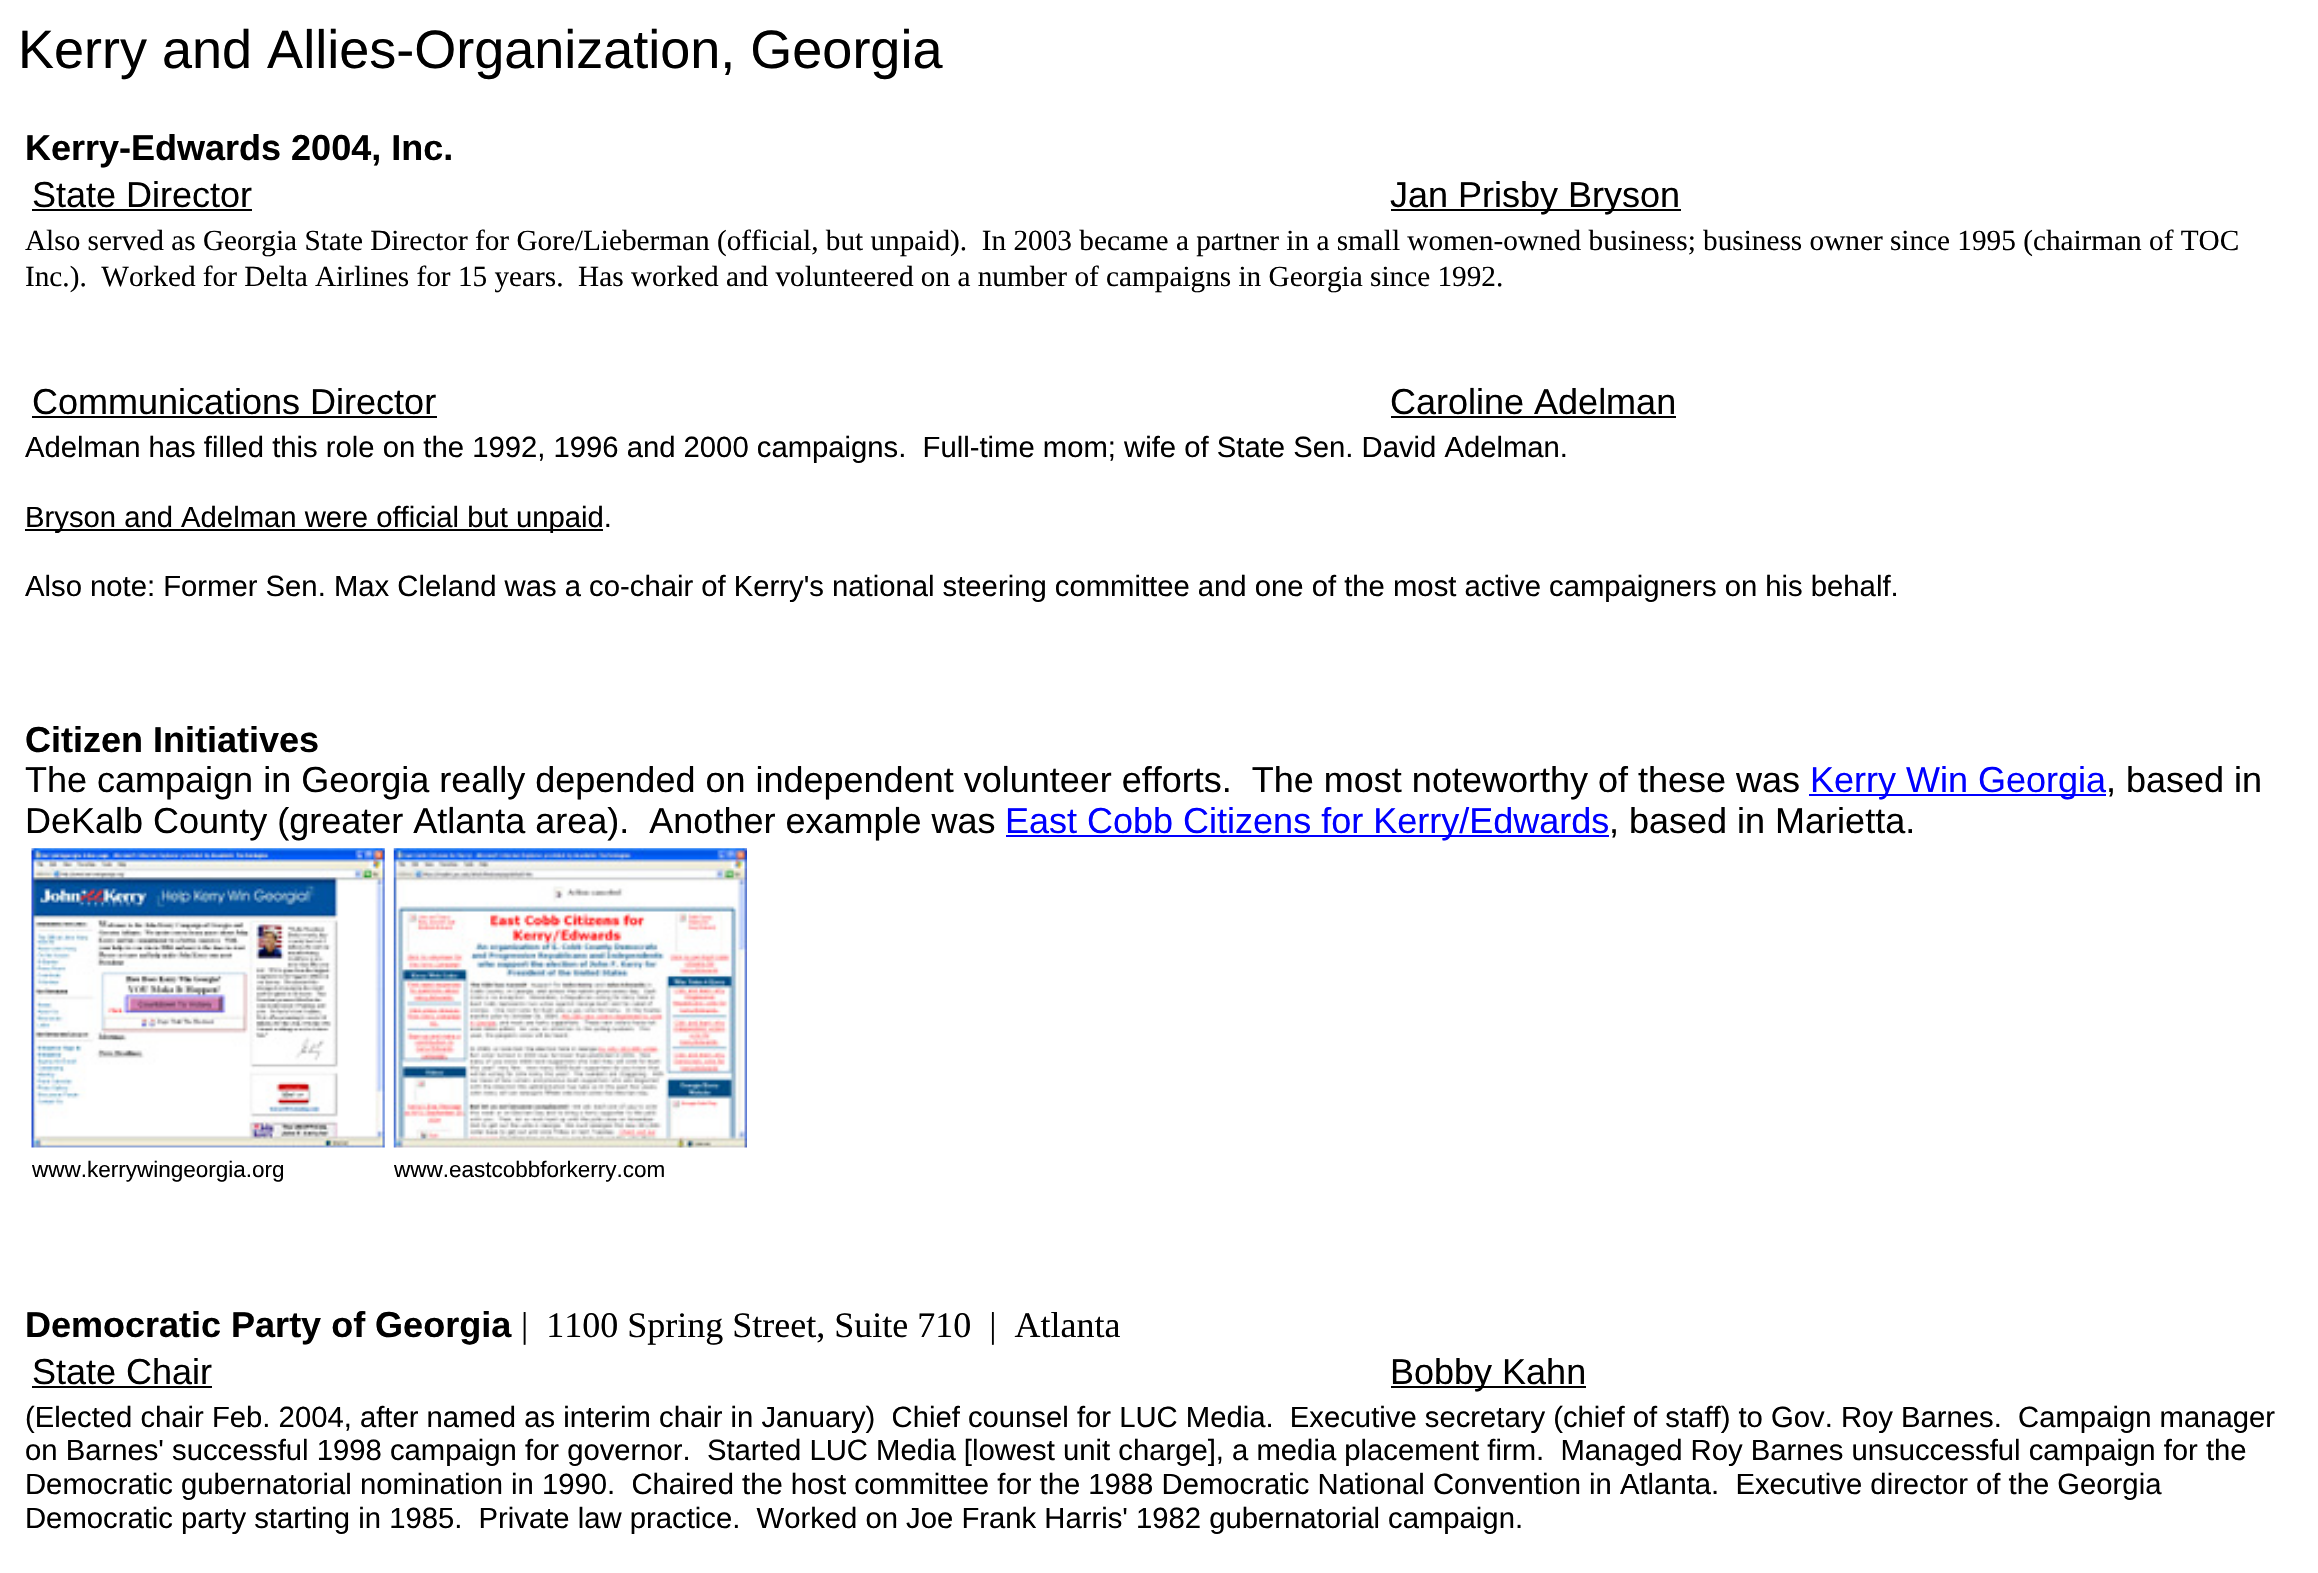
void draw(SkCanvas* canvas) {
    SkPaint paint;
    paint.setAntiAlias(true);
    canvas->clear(0xFFFFFFFF);
    SkFont font1(fontMgr->matchFamilyStyle("Liberation Sans", SkFontStyle::Normal()), 54);
    font1.setSubpixel(true);
    paint.setColor(0xFF000000);
    canvas->drawString("Kerry and Allies-Organization, Georgia", 18, 68, font1, paint);
    SkFont font2(fontMgr->matchFamilyStyle("Liberation Sans", SkFontStyle::Bold()), 36);
    font2.setSubpixel(true);
    canvas->drawString("Kerry-Edwards 2004, Inc.", 25, 160, font2, paint);
    SkFont font3(fontMgr->matchFamilyStyle("Liberation Sans", SkFontStyle::Normal()), 36);
    font3.setSubpixel(true);
    canvas->drawString("State Director", 32, 207, font3, paint);
    canvas->drawRect(SkRect::MakeXYWH(32, 209, 220, 2), paint);
    canvas->drawRect(SkRect::MakeXYWH(1391, 209, 290, 2), paint);
    canvas->drawString("Jan Prisby Bryson", 1390, 207, font3, paint);
    SkFont font4(fontMgr->matchFamilyStyle("Liberation Serif", SkFontStyle::Normal()), 29.25f);
    font4.setSubpixel(true);
    canvas->drawString("Also served as Georgia State Director for Gore/Lieberman (official, but unpaid).  In 2003 became a partner in a small women-owned business; business owner since 1995 (chairman of TOC", 25, 250, font4, paint);
    canvas->drawString("Inc.).  Worked for Delta Airlines for 15 years.  Has worked and volunteered on a number of campaigns in Georgia since 1992.", 25, 286, font4, paint);
    canvas->drawString("Communications Director", 32, 414, font3, paint);
    canvas->drawRect(SkRect::MakeXYWH(32, 416, 405, 2), paint);
    canvas->drawString("Caroline Adelman", 1390, 414, font3, paint);
    canvas->drawRect(SkRect::MakeXYWH(1391, 416, 285, 2), paint);
    SkFont font5(fontMgr->matchFamilyStyle("Liberation Sans", SkFontStyle::Normal()), 29.25f);
    font5.setSubpixel(true);
    canvas->drawString("Adelman has filled this role on the 1992, 1996 and 2000 campaigns.  Full-time mom; wife of State Sen. David Adelman.", 25, 457, font5, paint);
    canvas->drawRect(SkRect::MakeXYWH(25, 529, 578, 2), paint);
    canvas->drawString("Bryson and Adelman were official but unpaid.", 25, 527, font5, paint);
    canvas->drawString("Also note: Former Sen. Max Cleland was a co-chair of Kerry's national steering committee and one of the most active campaigners on his behalf.", 25, 596, font5, paint);
    canvas->drawString("Citizen Initiatives", 25, 752, font2, paint);
    canvas->drawString("The campaign in Georgia really depended on independent volunteer efforts.  The most noteworthy of these was", 25, 792, font3, paint);
    paint.setColor(0xFF0000FF);
    canvas->drawRect(SkRect::MakeXYWH(1809, 794, 297, 2), paint);
    canvas->drawString("Kerry Win Georgia", 1810, 792, font3, paint);
    paint.setColor(0xFF000000);
    canvas->drawString(", based in", 2106, 792, font3, paint);
    canvas->drawString("DeKalb County (greater Atlanta area).  Another example was", 25, 833, font3, paint);
    paint.setColor(0xFF0000FF);
    canvas->drawRect(SkRect::MakeXYWH(1006, 835, 603, 2), paint);
    canvas->drawString("East Cobb Citizens for Kerry/Edwards", 1005, 833, font3, paint);
    paint.setColor(0xFF000000);
    canvas->drawString(", based in Marietta.", 1609, 833, font3, paint);
    canvas->drawImageRect(SkImages::DeferredFromEncodedData(SkData::MakeFromFileName("img1.png")), SkRect::MakeXYWH(31, 848, 354, 300), SkSamplingOptions());
    canvas->drawImageRect(SkImages::DeferredFromEncodedData(SkData::MakeFromFileName("img2.png")), SkRect::MakeXYWH(393, 848, 354, 300), SkSamplingOptions());
    SkFont font6(fontMgr->matchFamilyStyle("Liberation Sans", SkFontStyle::Normal()), 22.5f);
    font6.setSubpixel(true);
    canvas->drawString("www.kerrywingeorgia.org", 32, 1177, font6, paint);
    canvas->drawString("www.eastcobbforkerry.com", 394, 1177, font6, paint);
    canvas->drawString("Democratic Party of Georgia", 25, 1337, font2, paint);
    SkFont font7(fontMgr->matchFamilyStyle("Liberation Serif", SkFontStyle::Normal()), 36);
    font7.setSubpixel(true);
    canvas->drawString("|  1100 Spring Street, Suite 710  |  Atlanta", 521, 1337, font7, paint);
    canvas->drawString("State Chair", 32, 1384, font3, paint);
    canvas->drawRect(SkRect::MakeXYWH(32, 1386, 180, 2), paint);
    canvas->drawRect(SkRect::MakeXYWH(1391, 1386, 195, 2), paint);
    canvas->drawString("Bobby Kahn", 1390, 1384, font3, paint);
    canvas->drawString("(Elected chair Feb. 2004, after named as interim chair in January)  Chief counsel for LUC Media.  Executive secretary (chief of staff) to Gov. Roy Barnes.  Campaign manager", 25, 1427, font5, paint);
    canvas->drawString("on Barnes' successful 1998 campaign for governor.  Started LUC Media [lowest unit charge], a media placement firm.  Managed Roy Barnes unsuccessful campaign for the", 25, 1460, font5, paint);
    canvas->drawString("Democratic gubernatorial nomination in 1990.  Chaired the host committee for the 1988 Democratic National Convention in Atlanta.  Executive director of the Georgia", 25, 1494, font5, paint);
    canvas->drawString("Democratic party starting in 1985.  Private law practice.  Worked on Joe Frank Harris' 1982 gubernatorial campaign.", 25, 1528, font5, paint);
}
